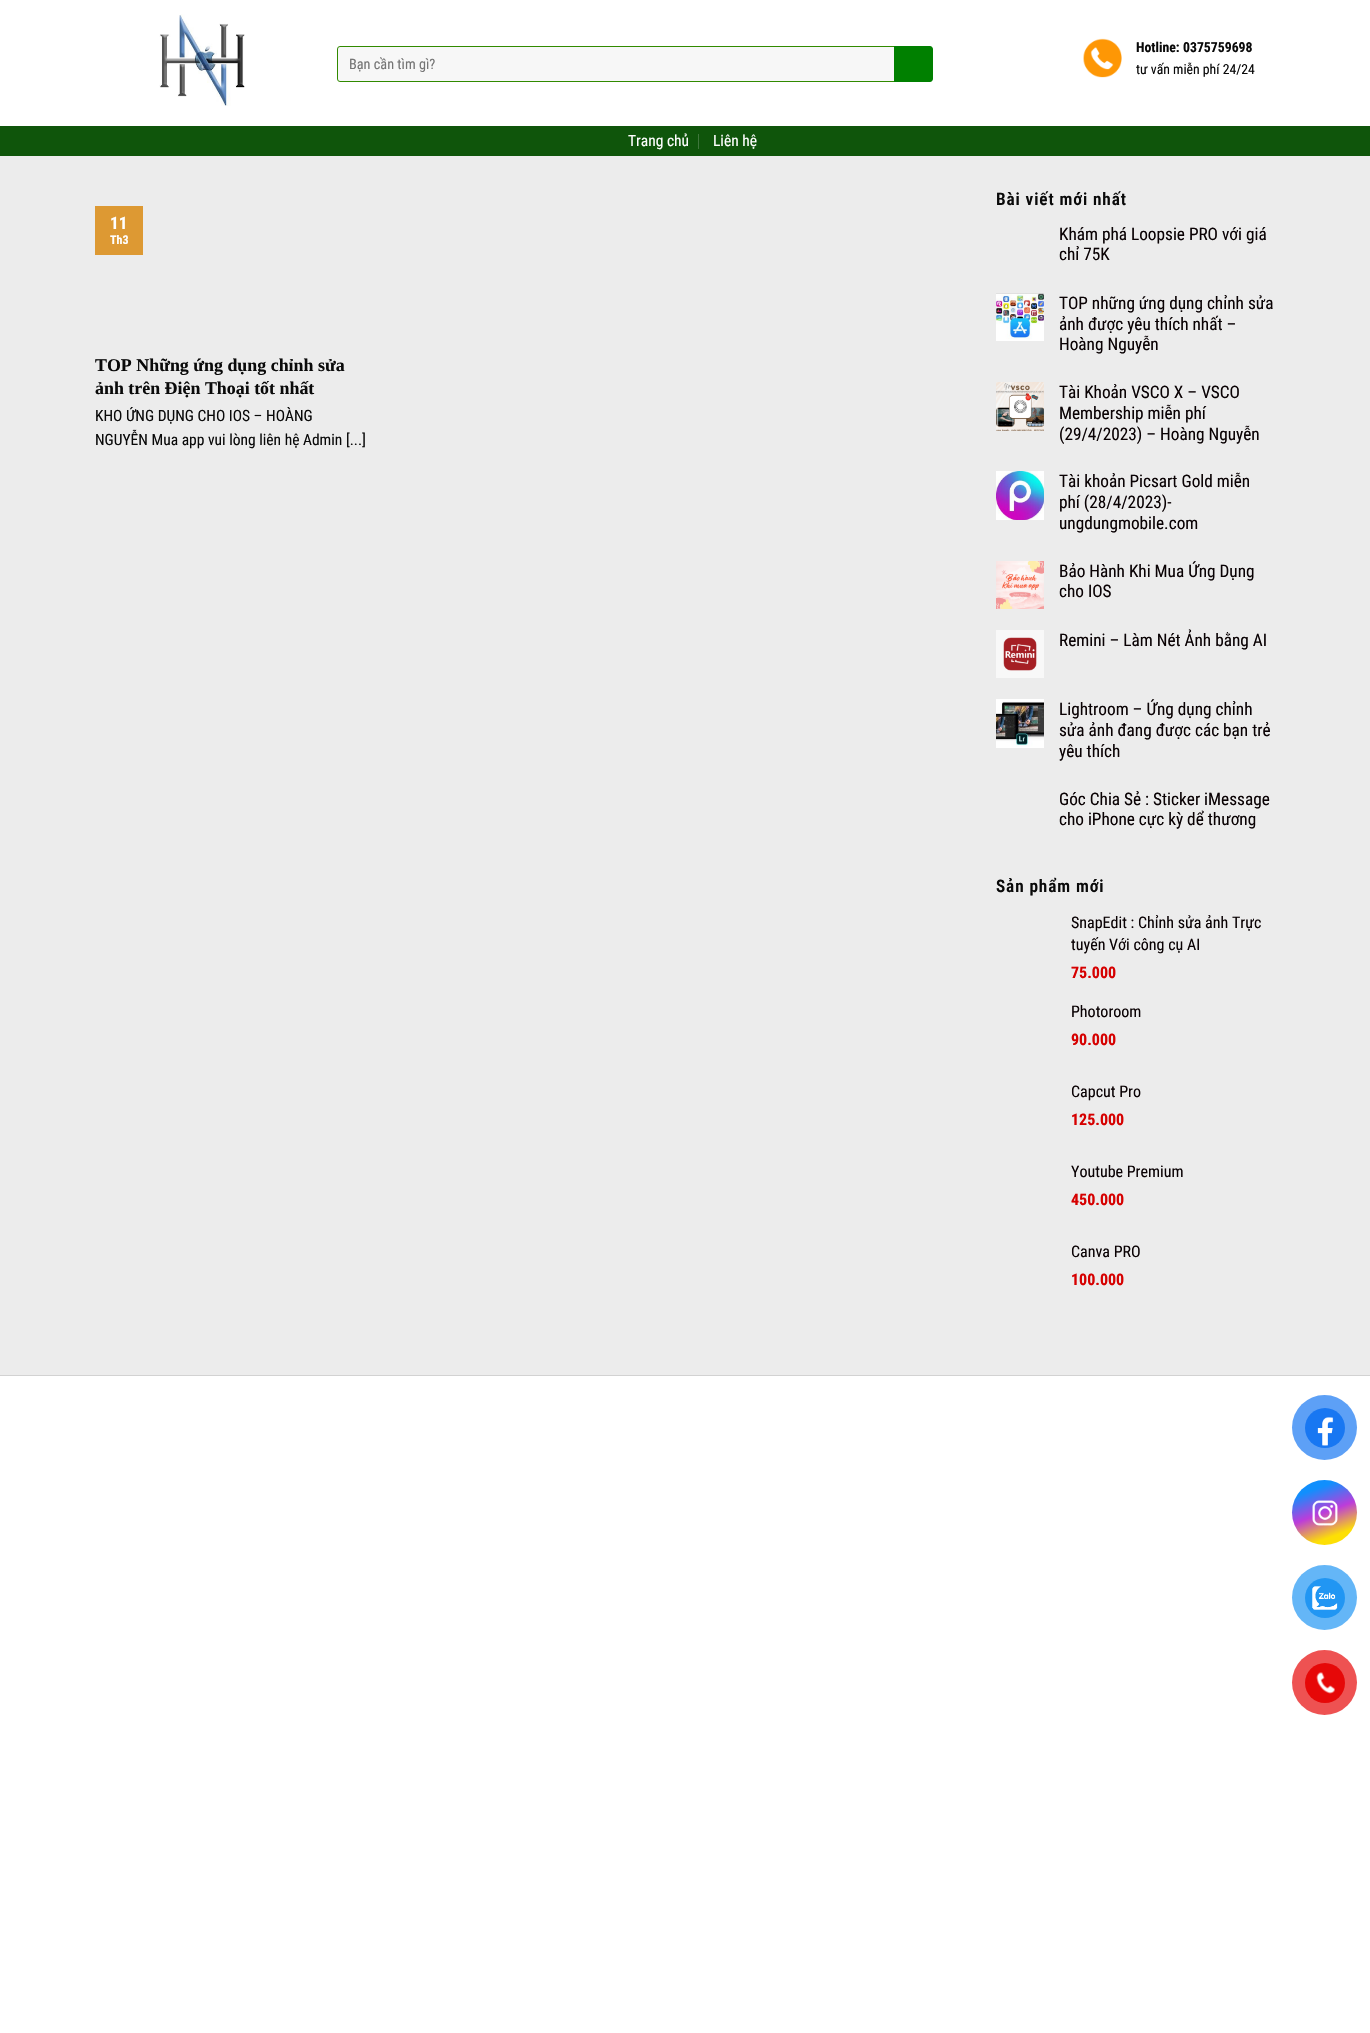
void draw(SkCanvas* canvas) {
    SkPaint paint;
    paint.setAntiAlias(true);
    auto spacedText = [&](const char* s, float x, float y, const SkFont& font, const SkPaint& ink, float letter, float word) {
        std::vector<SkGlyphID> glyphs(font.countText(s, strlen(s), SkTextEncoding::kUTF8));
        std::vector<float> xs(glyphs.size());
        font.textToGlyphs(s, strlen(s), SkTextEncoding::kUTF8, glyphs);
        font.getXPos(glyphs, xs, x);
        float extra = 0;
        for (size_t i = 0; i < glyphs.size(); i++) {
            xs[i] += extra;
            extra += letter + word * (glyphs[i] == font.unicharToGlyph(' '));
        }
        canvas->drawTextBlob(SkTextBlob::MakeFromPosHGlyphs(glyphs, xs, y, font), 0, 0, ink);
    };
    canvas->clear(0xFFFFFFFF);
    canvas->drawImageRect(SkImages::DeferredFromEncodedData(SkData::MakeFromFileName("img1.png")), SkRect::MakeXYWH(159, 14, 86, 92), SkSamplingOptions());
    paint.setColor(0xFFF7F7F7);
    canvas->drawRoundRect(SkRect::MakeXYWH(337.5f, 46.5f, 561, 35), 2.5f, 2.5f, paint);
    paint.setStyle(SkPaint::kStroke_Style);
    paint.setStrokeWidth(1);
    paint.setColor(0xFF318A00);
    canvas->drawRoundRect(SkRect::MakeXYWH(337.5f, 46.5f, 561, 35), 2.5f, 2.5f, paint);
    SkFont font1(fontMgr->matchFamilyStyle("Roboto Condensed", SkFontStyle::Normal()), 14.25f);
    font1.setSubpixel(true);
    paint.setStyle(SkPaint::kFill_Style);
    paint.setColor(0xFF757575);
    canvas->drawString("Bạn cần tìm gì?", 349, 69, font1, paint);
    paint.setColor(0xFF008000);
    canvas->drawPath(SkPathBuilder().moveTo(894, 46).lineTo(930, 46).cubicTo(931.5f, 46, 933, 47.5f, 933, 49).lineTo(933, 79).cubicTo(933, 80.5f, 931.5f, 82, 930, 82).lineTo(894, 82).close().detach(), paint);
    canvas->drawImageRect(SkImages::DeferredFromEncodedData(SkData::MakeFromFileName("img2.png")), SkRect::MakeXYWH(1083, 38, 39, 40), SkSamplingOptions());
    SkFont font2(fontMgr->matchFamilyStyle("Roboto Condensed", SkFontStyle::Bold()), 13.75f);
    font2.setSubpixel(true);
    paint.setColor(0xFF0A0A0A);
    canvas->drawString("Hotline:", 1136, 52, font2, paint);
    canvas->drawString("0375759698", 1183, 52, font2, paint);
    SkFont font3(fontMgr->matchFamilyStyle("Roboto Condensed", SkFontStyle::Normal()), 13.75f);
    font3.setSubpixel(true);
    canvas->drawString("tư vấn miễn phí 24/24", 1136, 74, font3, paint);
    paint.setColor(0xFF0F550B);
    canvas->drawRect(SkRect::MakeXYWH(0, 126, 1370, 30), paint);
    SkFont font4(fontMgr->matchFamilyStyle("Roboto Condensed", SkFontStyle::Normal()), 15.5f);
    font4.setSubpixel(true);
    paint.setColor(0xFFFFFFFF);
    canvas->drawString("Trang chủ", 628, 146, font4, paint);
    paint.setColor(0xFF3F773C);
    canvas->drawRect(SkRect::MakeXYWH(698, 134, 1, 15), paint);
    paint.setColor(0xFFFFFFFF);
    canvas->drawString("Liên hệ", 713, 146, font4, paint);
    paint.setColor(0xFFECECEC);
    canvas->drawRect(SkRect::MakeXYWH(0, 156, 1370, 1219), paint);
    paint.setColor(0xFFDD9933);
    canvas->drawRect(SkRect::MakeXYWH(95, 206, 48, 49), paint);
    SkFont font5(fontMgr->matchFamilyStyle("Roboto Condensed", SkFontStyle::Bold()), 17.25f);
    font5.setSubpixel(true);
    paint.setColor(0xFFFFFFFF);
    canvas->drawString("11", 110, 229, font5, paint);
    SkFont font6(fontMgr->matchFamilyStyle("Roboto Condensed", SkFontStyle::Bold()), 12);
    font6.setSubpixel(true);
    canvas->drawString("Th3", 110, 244, font6, paint);
    SkFont font7(fontMgr->matchFamilyStyle("Liberation Serif", SkFontStyle::Bold()), 17.9f);
    font7.setSubpixel(true);
    paint.setColor(0xFF0A0A0A);
    canvas->drawString("TOP Những ứng dụng chỉnh sửa", 95, 371, font7, paint);
    canvas->drawString("ảnh trên Điện Thoại tốt nhất", 95, 394, font7, paint);
    canvas->drawString("KHO ỨNG DỤNG CHO IOS – HOÀNG", 95, 421, font4, paint);
    canvas->drawString("NGUYỄN Mua app vui lòng liên hệ Admin [...]", 95, 445, font4, paint);
    SkFont font8(fontMgr->matchFamilyStyle("Roboto Condensed", SkFontStyle(600, SkFontStyle::kNormal_Width, SkFontStyle::kUpright_Slant)), 17.25f);
    font8.setSubpixel(true);
    spacedText("Bài viết mới nhất", 996, 205, font8, paint, 0.9f, 0);
    SkFont font9(fontMgr->matchFamilyStyle("Roboto Condensed", SkFontStyle::Normal()), 17.25f);
    font9.setSubpixel(true);
    paint.setColor(0xFF0A0204);
    canvas->drawString("Khám phá Loopsie PRO với giá", 1059, 240, font9, paint);
    canvas->drawString("chỉ 75K", 1059, 260, font9, paint);
    canvas->drawImageRect(SkImages::DeferredFromEncodedData(SkData::MakeFromFileName("img3.png")), SkRect::MakeXYWH(996, 293, 48, 48), SkSamplingOptions());
    canvas->drawString("TOP những ứng dụng chỉnh sửa", 1059, 309, font9, paint);
    canvas->drawString("ảnh được yêu thích nhất –", 1059, 330, font9, paint);
    canvas->drawString("Hoàng Nguyễn", 1059, 350, font9, paint);
    canvas->drawImageRect(SkImages::DeferredFromEncodedData(SkData::MakeFromFileName("img4.png")), SkRect::MakeXYWH(996, 382, 48, 49), SkSamplingOptions());
    canvas->drawString("Tài Khoản VSCO X – VSCO", 1059, 398, font9, paint);
    canvas->drawString("Membership miễn phí", 1059, 419, font9, paint);
    canvas->drawString("(29/4/2023) – Hoàng Nguyễn", 1059, 440, font9, paint);
    canvas->drawImageRect(SkImages::DeferredFromEncodedData(SkData::MakeFromFileName("img5.png")), SkRect::MakeXYWH(996, 471, 48, 49), SkSamplingOptions());
    canvas->drawString("Tài khoản Picsart Gold miễn", 1059, 487, font9, paint);
    canvas->drawString("phí (28/4/2023)-", 1059, 508, font9, paint);
    canvas->drawString("ungdungmobile.com", 1059, 529, font9, paint);
    canvas->drawImageRect(SkImages::DeferredFromEncodedData(SkData::MakeFromFileName("img6.png")), SkRect::MakeXYWH(996, 561, 48, 48), SkSamplingOptions());
    canvas->drawString("Bảo Hành Khi Mua Ứng Dụng", 1059, 577, font9, paint);
    canvas->drawString("cho IOS", 1059, 597, font9, paint);
    canvas->drawImageRect(SkImages::DeferredFromEncodedData(SkData::MakeFromFileName("img7.png")), SkRect::MakeXYWH(996, 630, 48, 48), SkSamplingOptions());
    canvas->drawString("Remini – Làm Nét Ảnh bằng AI", 1059, 646, font9, paint);
    canvas->drawImageRect(SkImages::DeferredFromEncodedData(SkData::MakeFromFileName("img8.png")), SkRect::MakeXYWH(996, 699, 48, 49), SkSamplingOptions());
    canvas->drawString("Lightroom – Ứng dụng chỉnh", 1059, 715, font9, paint);
    canvas->drawString("sửa ảnh đang được các bạn trẻ", 1059, 736, font9, paint);
    canvas->drawString("yêu thích", 1059, 757, font9, paint);
    canvas->drawString("Góc Chia Sẻ : Sticker iMessage", 1059, 805, font9, paint);
    canvas->drawString("cho iPhone cực kỳ dể thương", 1059, 825, font9, paint);
    paint.setColor(0xFF0A0A0A);
    spacedText("Sản phẩm mới", 996, 892, font8, paint, 0.9f, 0);
    SkFont font10(fontMgr->matchFamilyStyle("Roboto Condensed", SkFontStyle::Normal()), 16);
    font10.setSubpixel(true);
    paint.setColor(0xFF0A0204);
    canvas->drawString("SnapEdit : Chỉnh sửa ảnh Trực", 1071, 928, font10, paint);
    canvas->drawString("tuyến Với công cụ AI", 1071, 950, font10, paint);
    SkFont font11(fontMgr->matchFamilyStyle("Roboto Condensed", SkFontStyle::Bold()), 16);
    font11.setSubpixel(true);
    paint.setColor(0xFFD60000);
    canvas->drawString("75.000", 1071, 978, font11, paint);
    paint.setColor(0xFF0A0204);
    canvas->drawString("Photoroom", 1071, 1017, font10, paint);
    paint.setColor(0xFFD60000);
    canvas->drawString("90.000", 1071, 1045, font11, paint);
    paint.setColor(0xFF0A0204);
    canvas->drawString("Capcut Pro", 1071, 1097, font10, paint);
    paint.setColor(0xFFD60000);
    canvas->drawString("125.000", 1071, 1125, font11, paint);
    paint.setColor(0xFF0A0204);
    canvas->drawString("Youtube Premium", 1071, 1177, font10, paint);
    paint.setColor(0xFFD60000);
    canvas->drawString("450.000", 1071, 1205, font11, paint);
    paint.setColor(0xFF0A0204);
    canvas->drawString("Canva PRO", 1071, 1257, font10, paint);
    paint.setColor(0xFFD60000);
    canvas->drawString("100.000", 1071, 1285, font11, paint);
    paint.setColor(0xFFD2D2D2);
    canvas->drawRect(SkRect::MakeXYWH(0, 1375, 1370, 1), paint);
    paint.setColor(0xFF5DA0F6);
    canvas->drawCircle(1324.5f, 1427.5f, 32.5f, paint);
    paint.setColor(0xFF1877F2);
    canvas->drawCircle(1325, 1428, 20, paint);
    canvas->drawImageRect(SkImages::DeferredFromEncodedData(SkData::MakeFromFileName("img9.png")), SkRect::MakeXYWH(1317, 1417, 17, 29), SkSamplingOptions());
    {
        const SkColor colors[] = {0xFF118FFD, 0xFFBC3CDA, 0xFFFDDF05};
        const float stops[] = {0.2f, 0.5f, 0.8f};
        const SkPoint ends[] = {{1310, 1473}, {1339, 1552}};
        paint.setShader(SkGradientShader::MakeLinear(ends, colors, stops, 3, SkTileMode::kClamp));
        paint.setAlpha(255);
    }
    canvas->drawCircle(1324.5f, 1512.5f, 32.5f, paint);
    canvas->drawImageRect(SkImages::DeferredFromEncodedData(SkData::MakeFromFileName("img10.png")), SkRect::MakeXYWH(1312, 1500, 26, 26), SkSamplingOptions());
    paint.setShader(nullptr);
    paint.setColor(0xFF64B6F7);
    canvas->drawCircle(1324.5f, 1597.5f, 32.5f, paint);
    paint.setColor(0xFF2196F3);
    canvas->drawCircle(1325, 1598, 20, paint);
    canvas->drawImageRect(SkImages::DeferredFromEncodedData(SkData::MakeFromFileName("img11.png")), SkRect::MakeXYWH(1312, 1586, 26, 24), SkSamplingOptions());
    paint.setColor(0xFFEE5252);
    canvas->drawCircle(1324.5f, 1682.5f, 32.5f, paint);
    paint.setColor(0xFFE60808);
    canvas->drawCircle(1325, 1683, 20, paint);
    canvas->drawImageRect(SkImages::DeferredFromEncodedData(SkData::MakeFromFileName("img12.png")), SkRect::MakeXYWH(1316, 1672, 19, 22), SkSamplingOptions());
}
